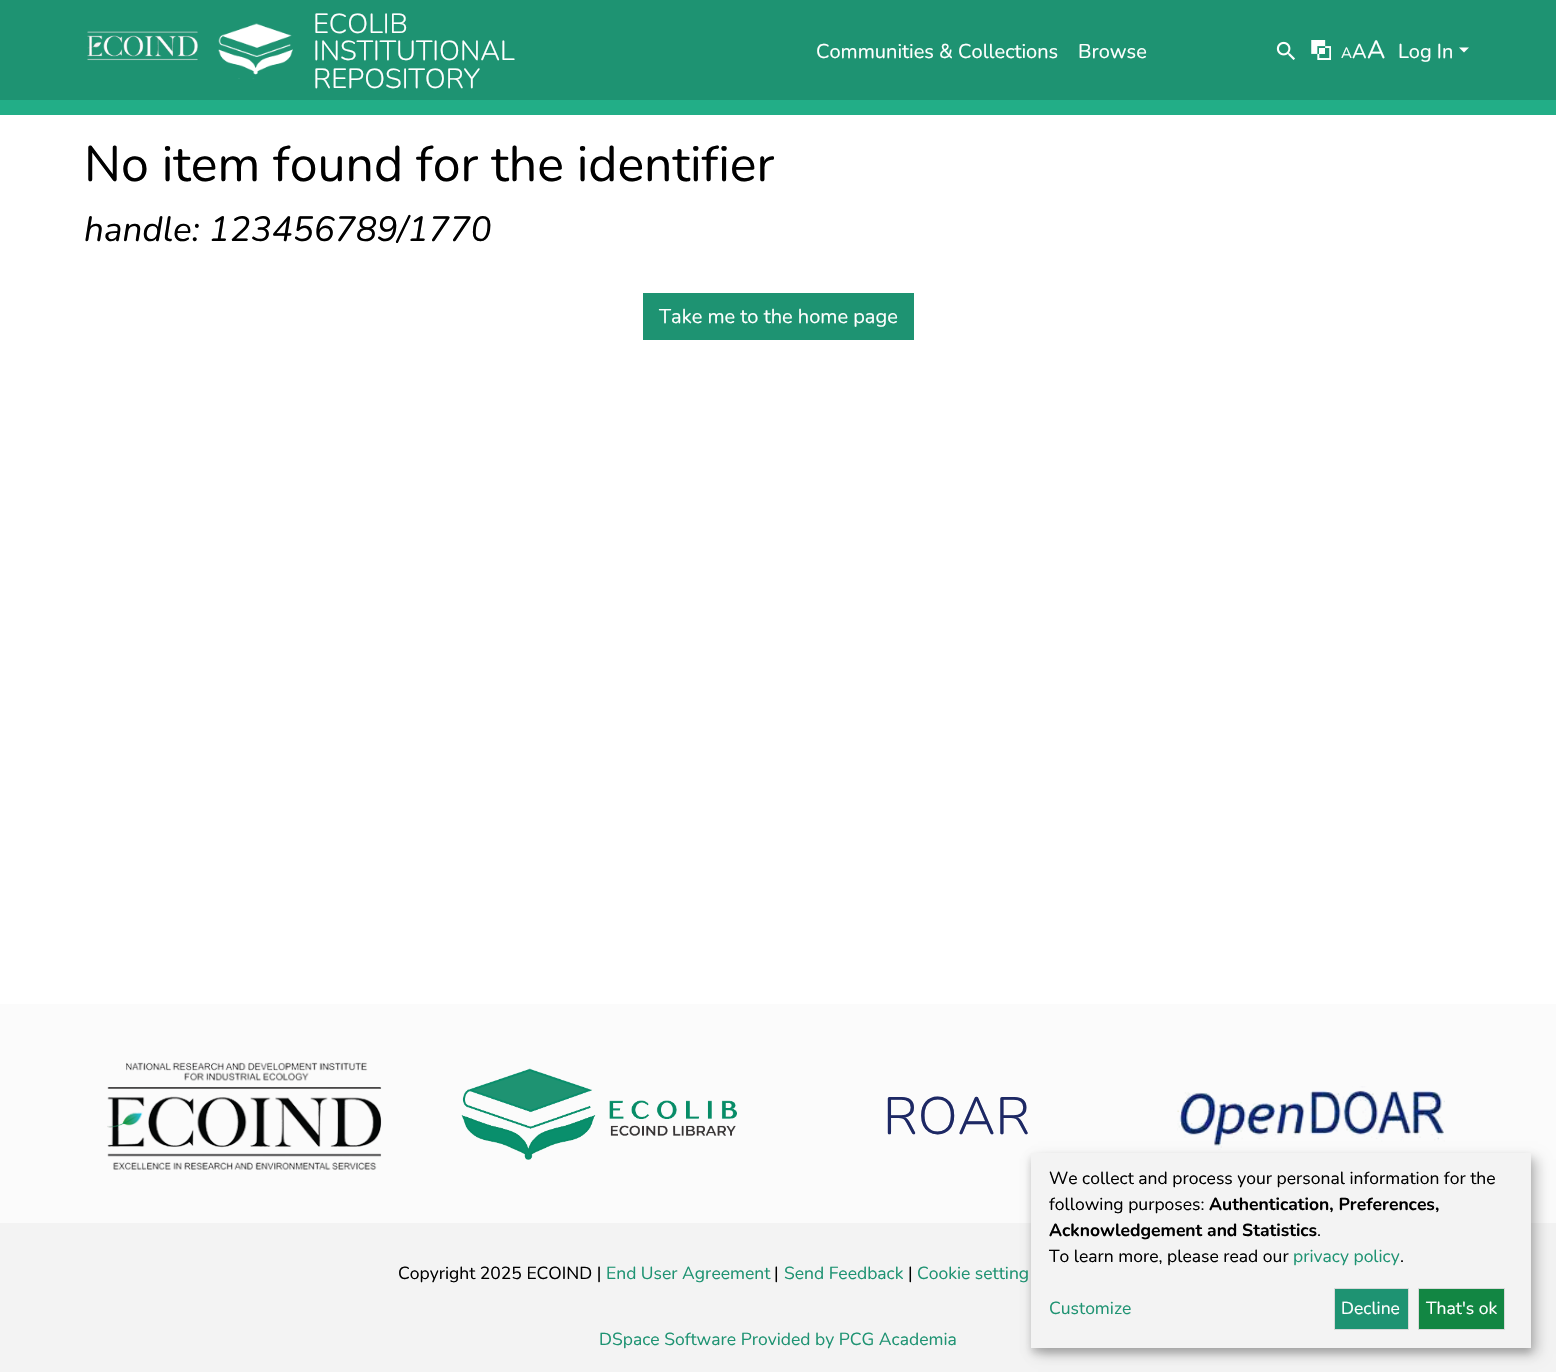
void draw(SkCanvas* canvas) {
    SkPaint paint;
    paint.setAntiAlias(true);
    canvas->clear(0xFFFFFFFF);
    paint.setColor(0xFF1E9372);
    canvas->drawRect(SkRect::MakeXYWH(0, 0, 1556, 100), paint);
    paint.setColor(0xFF22AE87);
    canvas->drawRect(SkRect::MakeXYWH(0, 100, 1556, 15), paint);
    canvas->drawImageRect(SkImages::DeferredFromEncodedData(SkData::MakeFromFileName("img1.png")), SkRect::MakeXYWH(87, 31, 111, 30), SkSamplingOptions());
    canvas->drawImageRect(SkImages::DeferredFromEncodedData(SkData::MakeFromFileName("img2.png")), SkRect::MakeXYWH(218, 23, 75, 56), SkSamplingOptions());
    SkFont font1(fontMgr->matchFamilyStyle("Nunito", SkFontStyle(300, SkFontStyle::kNormal_Width, SkFontStyle::kUpright_Slant)), 27.5f);
    font1.setSubpixel(true);
    paint.setColor(0xFFFFFFFF);
    canvas->drawString("ECOLIB", 313, 33, font1, paint);
    canvas->drawString("INSTITUTIONAL", 313, 60, font1, paint);
    canvas->drawString("REPOSITORY", 313, 88, font1, paint);
    SkFont font2(fontMgr->matchFamilyStyle("Nunito", SkFontStyle::Normal()), 20);
    font2.setSubpixel(true);
    canvas->drawString("Communities & Collections", 816, 58, font2, paint);
    canvas->drawString("Browse", 1078, 58, font2, paint);
    canvas->drawImageRect(SkImages::DeferredFromEncodedData(SkData::MakeFromFileName("img3.png")), SkRect::MakeXYWH(1276, 41, 19, 19), SkSamplingOptions());
    canvas->drawImageRect(SkImages::DeferredFromEncodedData(SkData::MakeFromFileName("img4.png")), SkRect::MakeXYWH(1311, 40, 20, 20), SkSamplingOptions());
    SkFont font3(fontMgr->matchFamilyStyle("Nunito", SkFontStyle::Normal()), 15);
    font3.setSubpixel(true);
    canvas->drawString("A", 1341, 58, font3, paint);
    canvas->drawString("A", 1352, 58, font2, paint);
    SkFont font4(fontMgr->matchFamilyStyle("Nunito", SkFontStyle::Normal()), 25);
    font4.setSubpixel(true);
    canvas->drawString("A", 1367, 58, font4, paint);
    canvas->drawString("Log In", 1398, 58, font2, paint);
    canvas->drawPath(SkPathBuilder().moveTo(1459, 47.5f).lineTo(1469, 47.5f).lineTo(1464, 52.5f).close().detach(), paint);
    SkFont font5(fontMgr->matchFamilyStyle("Nunito", SkFontStyle::Normal()), 50);
    font5.setSubpixel(true);
    paint.setColor(0xFF000000);
    canvas->drawString("No item found for the identifier", 84, 181, font5, paint);
    SkFont font6(fontMgr->matchFamilyStyle("Nunito", SkFontStyle::Italic()), 35);
    font6.setSubpixel(true);
    canvas->drawString("handle: 123456789/1770", 84, 241, font6, paint);
    paint.setColor(0xFF1E9372);
    canvas->drawRect(SkRect::MakeXYWH(643, 293, 271, 47), paint);
    paint.setColor(0xFFFFFFFF);
    canvas->drawString("Take me to the home page", 659, 323, font2, paint);
    paint.setColor(0xFFFBFBFB);
    canvas->drawRect(SkRect::MakeXYWH(0, 1004, 1556, 219), paint);
    canvas->drawImageRect(SkImages::DeferredFromEncodedData(SkData::MakeFromFileName("img5.png")), SkRect::MakeXYWH(107, 1062, 275, 108), SkSamplingOptions());
    canvas->drawImageRect(SkImages::DeferredFromEncodedData(SkData::MakeFromFileName("img6.png")), SkRect::MakeXYWH(461, 1068, 276, 92), SkSamplingOptions());
    SkFont font7(fontMgr->matchFamilyStyle("Nunito", SkFontStyle(300, SkFontStyle::kNormal_Width, SkFontStyle::kUpright_Slant)), 52.5f);
    font7.setSubpixel(true);
    paint.setColor(0xFF1D2864);
    canvas->drawString("ROAR", 883, 1134, font7, paint);
    canvas->drawImageRect(SkImages::DeferredFromEncodedData(SkData::MakeFromFileName("img7.png")), SkRect::MakeXYWH(1177, 1086, 268, 64), SkSamplingOptions());
    paint.setColor(0xFFF3F3F3);
    canvas->drawRect(SkRect::MakeXYWH(0, 1223, 1556, 149), paint);
    SkFont font8(fontMgr->matchFamilyStyle("Nunito", SkFontStyle::Normal()), 17.5f);
    font8.setSubpixel(true);
    paint.setColor(0xFF000000);
    canvas->drawString("Copyright 2025 ECOIND |", 398, 1279, font8, paint);
    paint.setColor(0xFF1E9372);
    canvas->drawString("End User Agreement", 606, 1279, font8, paint);
    paint.setColor(0xFF000000);
    canvas->drawString("|", 774, 1279, font8, paint);
    paint.setColor(0xFF1E9372);
    canvas->drawString("Send Feedback", 784, 1279, font8, paint);
    paint.setColor(0xFF000000);
    canvas->drawString("|", 908, 1279, font8, paint);
    paint.setColor(0xFF1E9372);
    canvas->drawString("Cookie setting", 917, 1279, font8, paint);
    canvas->drawString("DSpace Software Provided by PCG Academia", 599, 1345, font8, paint);
    paint.setColor(0x30000000);
    paint.setMaskFilter(SkMaskFilter::MakeBlur(kNormal_SkBlurStyle, 6));
    canvas->drawRect(SkRect::MakeXYWH(1038, 1159, 500, 195), paint);
    paint.setMaskFilter(nullptr);
    paint.setColor(0x33000000);
    paint.setMaskFilter(SkMaskFilter::MakeBlur(kNormal_SkBlurStyle, 4));
    canvas->drawRect(SkRect::MakeXYWH(1031, 1158, 500, 195), paint);
    paint.setMaskFilter(nullptr);
    paint.setColor(0xFFF3F3F3);
    canvas->drawRect(SkRect::MakeXYWH(1031, 1153, 500, 195), paint);
    paint.setColor(0xFF000000);
    canvas->drawString("We collect and process your personal information for the", 1049, 1184, font8, paint);
    canvas->drawString("following purposes:", 1049, 1210, font8, paint);
    SkFont font9(fontMgr->matchFamilyStyle("Nunito", SkFontStyle::Bold()), 17.5f);
    font9.setSubpixel(true);
    canvas->drawString("Authentication, Preferences,", 1209, 1210, font9, paint);
    canvas->drawString("Acknowledgement and Statistics", 1049, 1236, font9, paint);
    canvas->drawString(".", 1317, 1236, font8, paint);
    canvas->drawString("To learn more, please read our", 1049, 1262, font8, paint);
    paint.setColor(0xFF1E9372);
    canvas->drawString("privacy policy", 1293, 1262, font8, paint);
    paint.setColor(0xFF000000);
    canvas->drawString(".", 1400, 1262, font8, paint);
    paint.setColor(0xFF1E9372);
    canvas->drawString("Customize", 1049, 1314, font8, paint);
    canvas->drawRect(SkRect::MakeXYWH(1334.5f, 1288.5f, 74, 41), paint);
    paint.setStyle(SkPaint::kStroke_Style);
    paint.setStrokeWidth(1);
    paint.setColor(0xFFD9D9D9);
    canvas->drawRect(SkRect::MakeXYWH(1334.5f, 1288.5f, 74, 41), paint);
    paint.setStyle(SkPaint::kFill_Style);
    paint.setColor(0xFFFFFFFF);
    canvas->drawString("Decline", 1341, 1314, font8, paint);
    paint.setColor(0xFF128643);
    canvas->drawRect(SkRect::MakeXYWH(1418.5f, 1288.5f, 86, 41), paint);
    paint.setStyle(SkPaint::kStroke_Style);
    paint.setColor(0xFFD9D9D9);
    canvas->drawRect(SkRect::MakeXYWH(1418.5f, 1288.5f, 86, 41), paint);
    paint.setStyle(SkPaint::kFill_Style);
    paint.setColor(0xFFFFFFFF);
    canvas->drawString("That's ok", 1426, 1314, font8, paint);
}
